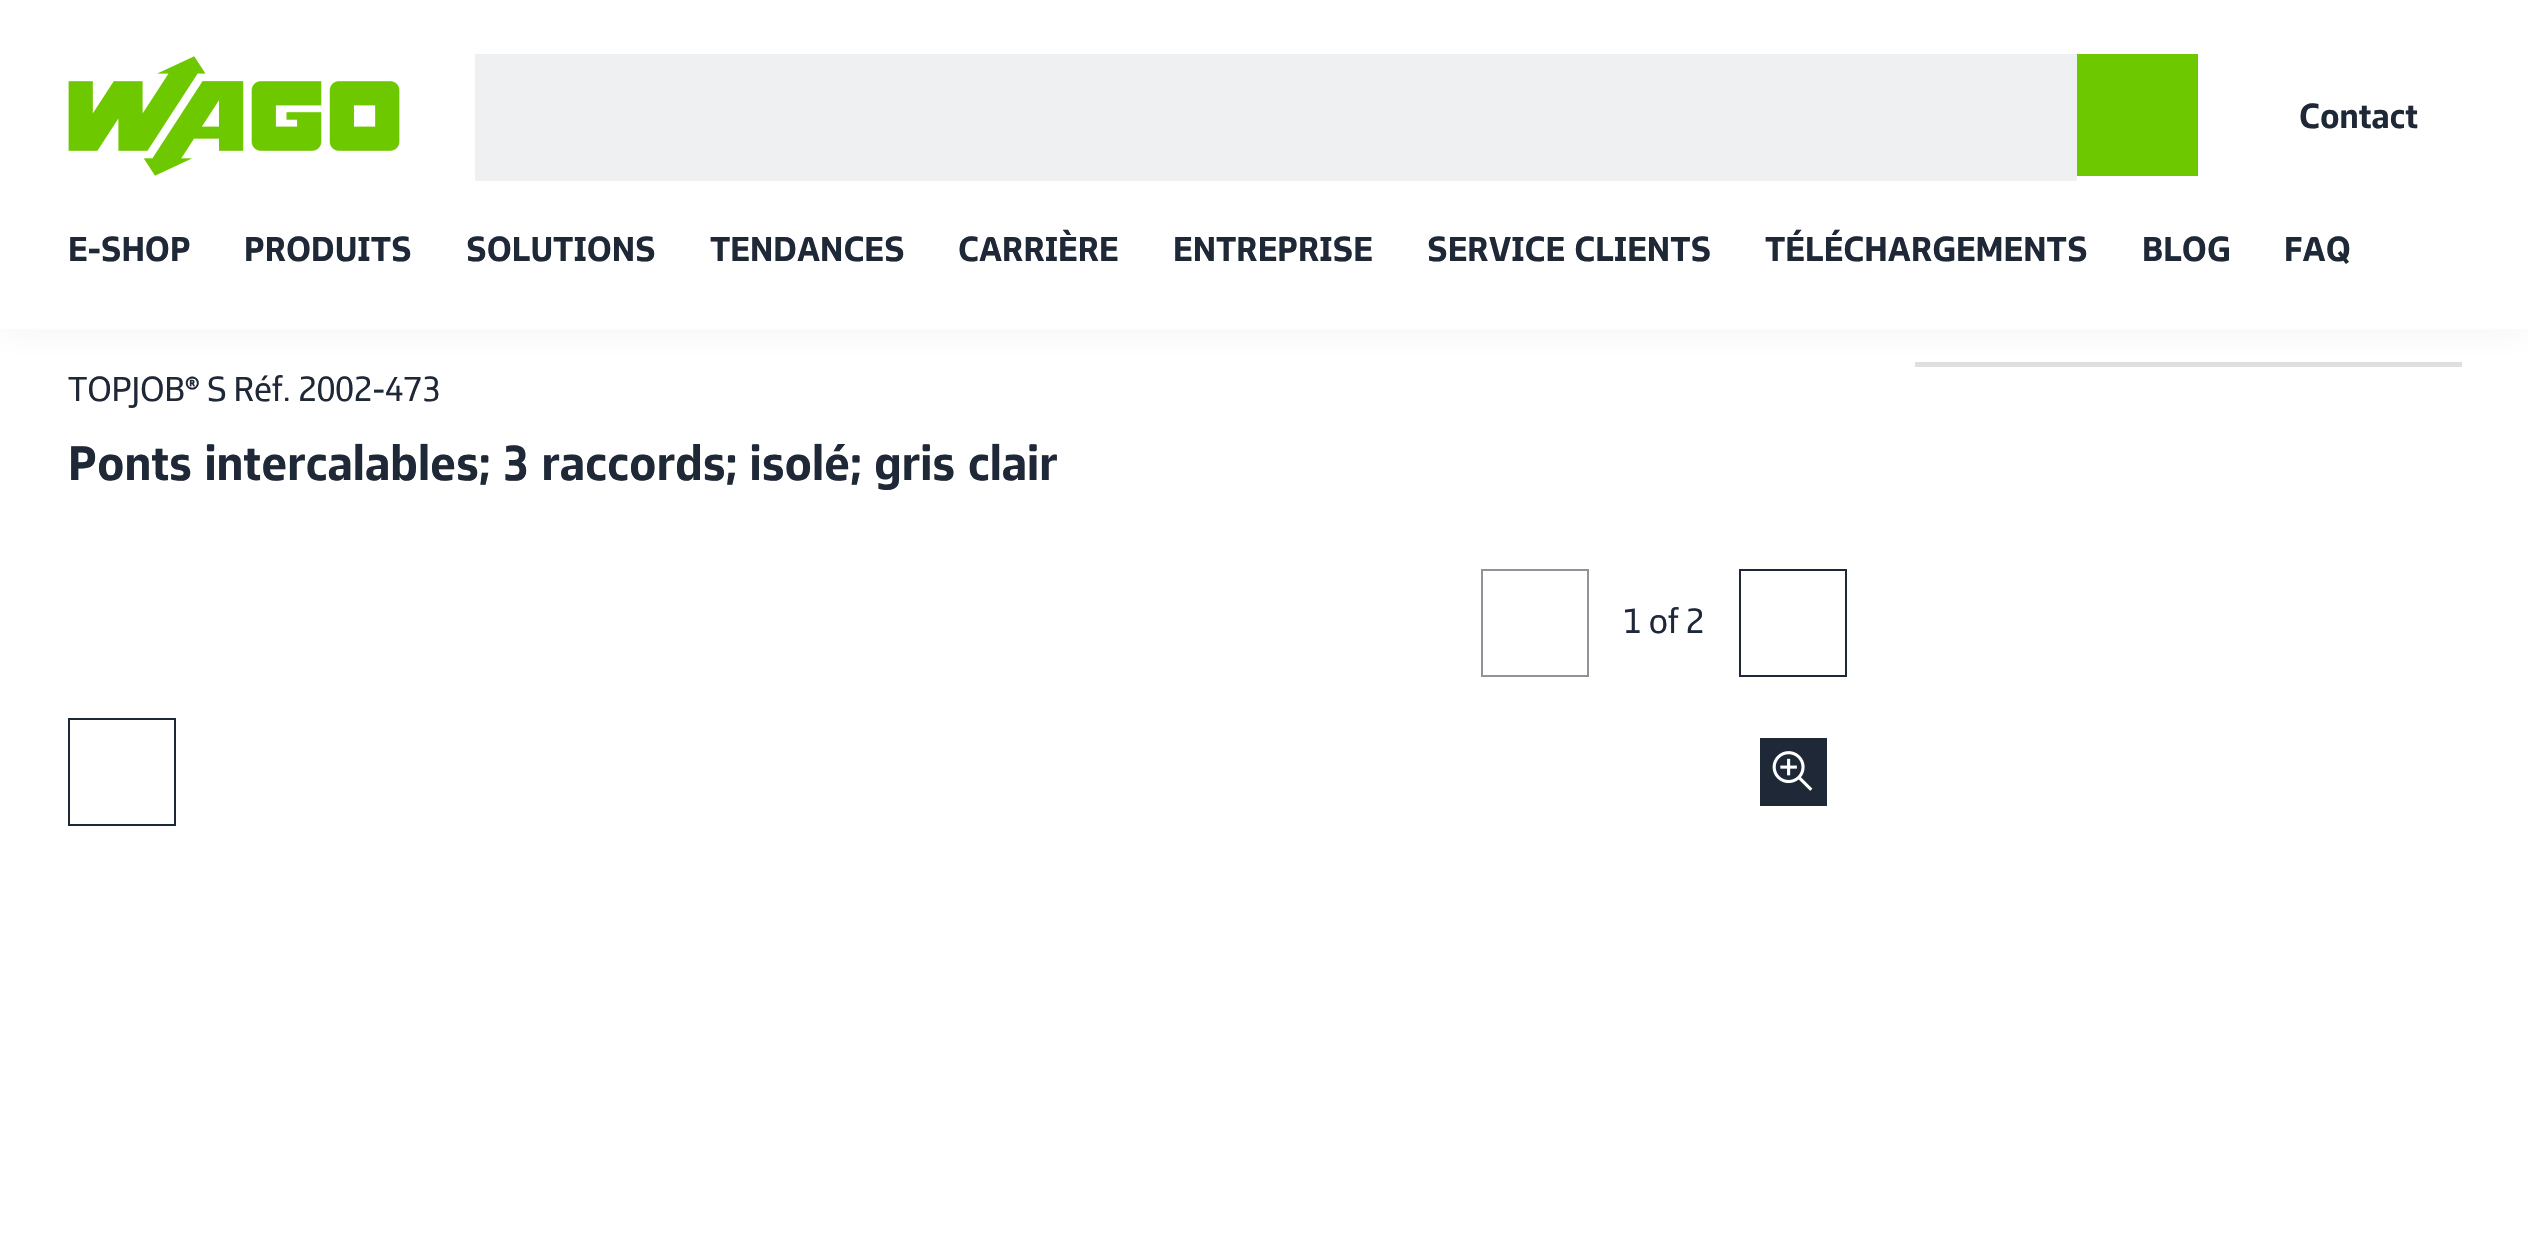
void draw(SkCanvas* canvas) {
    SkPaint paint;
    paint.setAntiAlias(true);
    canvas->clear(0xFFFFFFFF);
    paint.setColor(0xFFDEDFE1);
    canvas->drawRect(SkRect::MakeXYWH(1915, 362, 547, 5), paint);
    paint.setColor(0x0D1F2837);
    paint.setMaskFilter(SkMaskFilter::MakeBlur(kNormal_SkBlurStyle, 17));
    canvas->drawRect(SkRect::MakeXYWH(0, 2, 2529, 329), paint);
    paint.setMaskFilter(nullptr);
    paint.setColor(0xFFFFFFFF);
    canvas->drawRect(SkRect::MakeXYWH(0, 0, 2528, 329), paint);
    canvas->drawImageRect(SkImages::DeferredFromEncodedData(SkData::MakeFromFileName("img1.png")), SkRect::MakeXYWH(68, 56, 332, 120), SkSamplingOptions());
    paint.setColor(0xFFEFF0F1);
    canvas->drawRect(SkRect::MakeXYWH(475, 54, 1602, 127), paint);
    paint.setColor(0xFF6EC800);
    canvas->drawRect(SkRect::MakeXYWH(2077, 54, 121, 122), paint);
    SkFont font1(fontMgr->matchFamilyStyle("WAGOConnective", SkFontStyle::Bold()), 33.75f);
    font1.setSubpixel(true);
    paint.setColor(0xFF1F2837);
    canvas->drawString("Contact", 2299, 128, font1, paint);
    canvas->drawString("E-SHOP", 68, 261, font1, paint);
    canvas->drawString("PRODUITS", 244, 261, font1, paint);
    canvas->drawString("SOLUTIONS", 466, 261, font1, paint);
    canvas->drawString("TENDANCES", 710, 261, font1, paint);
    canvas->drawString("CARRIÈRE", 958, 261, font1, paint);
    canvas->drawString("ENTREPRISE", 1173, 261, font1, paint);
    canvas->drawString("SERVICE CLIENTS", 1427, 261, font1, paint);
    canvas->drawString("TÉLÉCHARGEMENTS", 1765, 261, font1, paint);
    canvas->drawString("BLOG", 2142, 261, font1, paint);
    canvas->drawString("FAQ", 2284, 261, font1, paint);
    SkFont font2(fontMgr->matchFamilyStyle("WAGOConnective", SkFontStyle::Normal()), 33.75f);
    font2.setSubpixel(true);
    canvas->drawString("TOPJOB® S Réf. 2002-473", 68, 401, font2, paint);
    SkFont font3(fontMgr->matchFamilyStyle("WAGOConnective", SkFontStyle::Bold()), 47.25f);
    font3.setSubpixel(true);
    canvas->drawString("Ponts intercalables; 3 raccords; isolé; gris clair", 68, 480, font3, paint);
    paint.setStyle(SkPaint::kStroke_Style);
    paint.setStrokeWidth(2);
    paint.setColor(0xFF8F949B);
    canvas->drawRect(SkRect::MakeXYWH(1482, 570, 106, 106), paint);
    paint.setStyle(SkPaint::kFill_Style);
    paint.setColor(0xFF1F2837);
    canvas->drawString("1 of 2", 1623, 633, font2, paint);
    paint.setStyle(SkPaint::kStroke_Style);
    canvas->drawRect(SkRect::MakeXYWH(1740, 570, 106, 106), paint);
    canvas->drawRect(SkRect::MakeXYWH(69, 719, 106, 106), paint);
    paint.setStyle(SkPaint::kFill_Style);
    canvas->drawRect(SkRect::MakeXYWH(1760, 738, 67, 68), paint);
    canvas->drawImageRect(SkImages::DeferredFromEncodedData(SkData::MakeFromFileName("img2.png")), SkRect::MakeXYWH(1772, 751, 41, 40), SkSamplingOptions());
}
